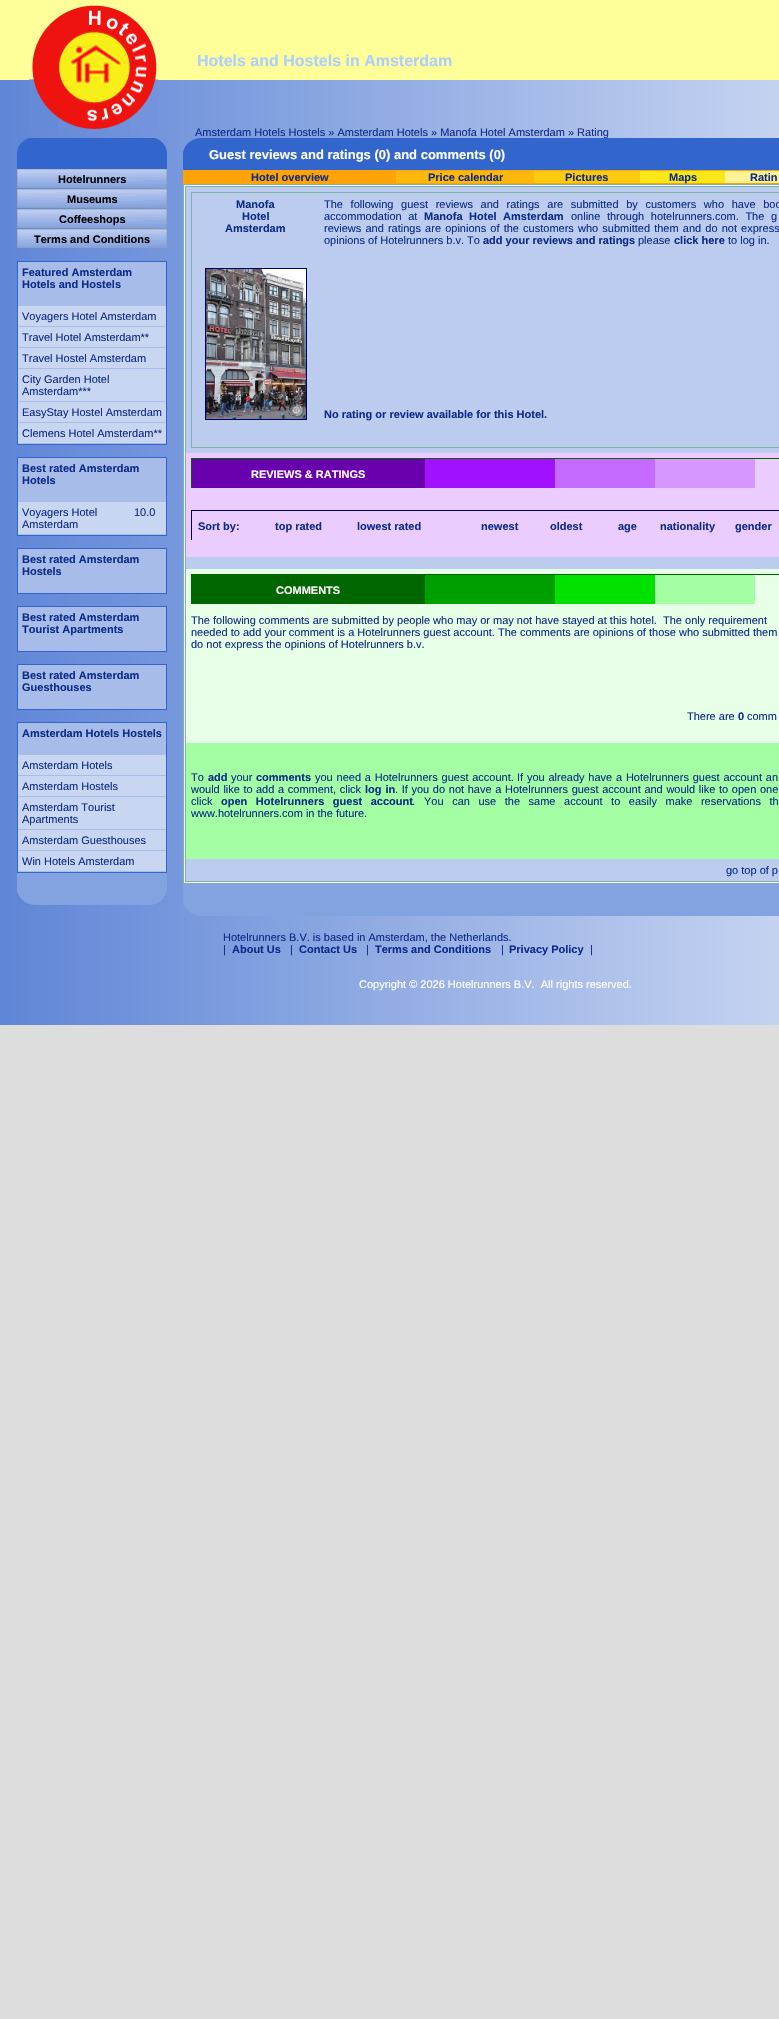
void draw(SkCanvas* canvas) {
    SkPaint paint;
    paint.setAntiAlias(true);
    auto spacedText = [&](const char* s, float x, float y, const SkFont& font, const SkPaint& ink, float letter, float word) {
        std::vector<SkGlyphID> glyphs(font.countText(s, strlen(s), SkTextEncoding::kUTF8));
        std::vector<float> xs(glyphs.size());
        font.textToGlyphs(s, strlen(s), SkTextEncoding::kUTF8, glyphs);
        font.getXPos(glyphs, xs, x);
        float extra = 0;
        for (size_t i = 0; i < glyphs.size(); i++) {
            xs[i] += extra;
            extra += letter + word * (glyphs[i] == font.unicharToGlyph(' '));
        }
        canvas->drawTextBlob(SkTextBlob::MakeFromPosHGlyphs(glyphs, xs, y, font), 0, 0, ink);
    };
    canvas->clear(0xFFDDDDDD);
    canvas->drawImageRect(SkImages::DeferredFromEncodedData(SkData::MakeFromFileName("img1.png")), SkRect::MakeXYWH(0, 80, 779, 945), SkSamplingOptions());
    paint.setColor(0xFFFFFF99);
    canvas->drawRect(SkRect::MakeXYWH(0, 0, 779, 80), paint);
    canvas->drawImageRect(SkImages::DeferredFromEncodedData(SkData::MakeFromFileName("img2.png")), SkRect::MakeXYWH(29, 5, 129, 125), SkSamplingOptions());
    SkFont font1(fontMgr->matchFamilyStyle("Liberation Sans", SkFontStyle::Bold()), 16);
    font1.setSubpixel(true);
    paint.setColor(0xFFAECEFF);
    canvas->drawString("Hotels and Hostels in Amsterdam", 197, 66, font1, paint);
    SkFont font2(fontMgr->matchFamilyStyle("Liberation Sans", SkFontStyle::Normal()), 11);
    font2.setSubpixel(true);
    paint.setColor(0xFF0D2B88);
    canvas->drawString("Amsterdam Hotels Hostels » Amsterdam Hotels » Manofa Hotel Amsterdam » Rating", 195, 136, font2, paint);
    canvas->drawImageRect(SkImages::DeferredFromEncodedData(SkData::MakeFromFileName("img3.png")), SkRect::MakeXYWH(17, 138, 150, 31), SkSamplingOptions());
    canvas->drawImageRect(SkImages::DeferredFromEncodedData(SkData::MakeFromFileName("img4.png")), SkRect::MakeXYWH(17, 169, 150, 19), SkSamplingOptions());
    SkFont font3(fontMgr->matchFamilyStyle("Liberation Sans", SkFontStyle::Bold()), 11);
    font3.setSubpixel(true);
    paint.setColor(0xFF000000);
    canvas->drawString("Hotelrunners", 58, 183, font3, paint);
    canvas->drawImageRect(SkImages::DeferredFromEncodedData(SkData::MakeFromFileName("img4.png")), SkRect::MakeXYWH(17, 189, 150, 19), SkSamplingOptions());
    canvas->drawString("Museums", 67, 203, font3, paint);
    canvas->drawImageRect(SkImages::DeferredFromEncodedData(SkData::MakeFromFileName("img4.png")), SkRect::MakeXYWH(17, 209, 150, 19), SkSamplingOptions());
    canvas->drawString("Coffeeshops", 59, 223, font3, paint);
    canvas->drawImageRect(SkImages::DeferredFromEncodedData(SkData::MakeFromFileName("img4.png")), SkRect::MakeXYWH(17, 229, 150, 19), SkSamplingOptions());
    canvas->drawString("Terms and Conditions", 34, 243, font3, paint);
    paint.setColor(0xFFC9D6F1);
    canvas->drawRect(SkRect::MakeXYWH(18, 306, 148, 137), paint);
    paint.setStyle(SkPaint::kStroke_Style);
    paint.setStrokeWidth(1);
    paint.setColor(0xFF3366CC);
    canvas->drawRect(SkRect::MakeXYWH(17.5f, 261.5f, 149, 183), paint);
    paint.setStyle(SkPaint::kFill_Style);
    paint.setColor(0xFFA7BCE9);
    canvas->drawRect(SkRect::MakeXYWH(18, 262, 148, 44), paint);
    paint.setColor(0xFF0D2B88);
    canvas->drawString("Featured Amsterdam", 22, 276, font3, paint);
    canvas->drawString("Hotels and Hostels", 22, 288, font3, paint);
    paint.setColor(0xFFA7BCE9);
    canvas->drawRect(SkRect::MakeXYWH(18, 326, 148, 1), paint);
    paint.setColor(0xFF0D2B88);
    canvas->drawString("Voyagers Hotel Amsterdam", 22, 320, font2, paint);
    paint.setColor(0xFFA7BCE9);
    canvas->drawRect(SkRect::MakeXYWH(18, 347, 148, 1), paint);
    paint.setColor(0xFF0D2B88);
    canvas->drawString("Travel Hotel Amsterdam**", 22, 341, font2, paint);
    paint.setColor(0xFFA7BCE9);
    canvas->drawRect(SkRect::MakeXYWH(18, 368, 148, 1), paint);
    paint.setColor(0xFF0D2B88);
    canvas->drawString("Travel Hostel Amsterdam", 22, 362, font2, paint);
    paint.setColor(0xFFA7BCE9);
    canvas->drawRect(SkRect::MakeXYWH(18, 401, 148, 1), paint);
    paint.setColor(0xFF0D2B88);
    canvas->drawString("City Garden Hotel", 22, 383, font2, paint);
    canvas->drawString("Amsterdam***", 22, 395, font2, paint);
    paint.setColor(0xFFA7BCE9);
    canvas->drawRect(SkRect::MakeXYWH(18, 422, 148, 1), paint);
    paint.setColor(0xFF0D2B88);
    canvas->drawString("EasyStay Hostel Amsterdam", 22, 416, font2, paint);
    paint.setColor(0xFFA7BCE9);
    canvas->drawRect(SkRect::MakeXYWH(18, 443, 148, 1), paint);
    paint.setColor(0xFF0D2B88);
    canvas->drawString("Clemens Hotel Amsterdam**", 22, 437, font2, paint);
    paint.setColor(0xFFC9D6F1);
    canvas->drawRect(SkRect::MakeXYWH(18, 502, 148, 32), paint);
    paint.setStyle(SkPaint::kStroke_Style);
    paint.setColor(0xFF3366CC);
    canvas->drawRect(SkRect::MakeXYWH(17.5f, 457.5f, 149, 78), paint);
    paint.setStyle(SkPaint::kFill_Style);
    paint.setColor(0xFFA7BCE9);
    canvas->drawRect(SkRect::MakeXYWH(18, 458, 148, 44), paint);
    paint.setColor(0xFF0D2B88);
    canvas->drawString("Best rated Amsterdam", 22, 472, font3, paint);
    canvas->drawString("Hotels", 22, 484, font3, paint);
    paint.setColor(0xFFA7BCE9);
    canvas->drawRect(SkRect::MakeXYWH(18, 534, 148, 1), paint);
    paint.setColor(0xFF0D2B88);
    canvas->drawString("Voyagers Hotel", 22, 516, font2, paint);
    canvas->drawString("Amsterdam", 22, 528, font2, paint);
    canvas->drawString("10.0", 134, 516, font2, paint);
    paint.setStyle(SkPaint::kStroke_Style);
    paint.setColor(0xFF3366CC);
    canvas->drawRect(SkRect::MakeXYWH(17.5f, 548.5f, 149, 45), paint);
    paint.setStyle(SkPaint::kFill_Style);
    paint.setColor(0xFFA7BCE9);
    canvas->drawRect(SkRect::MakeXYWH(18, 549, 148, 44), paint);
    paint.setColor(0xFF0D2B88);
    canvas->drawString("Best rated Amsterdam", 22, 563, font3, paint);
    canvas->drawString("Hostels", 22, 575, font3, paint);
    paint.setStyle(SkPaint::kStroke_Style);
    paint.setColor(0xFF3366CC);
    canvas->drawRect(SkRect::MakeXYWH(17.5f, 606.5f, 149, 45), paint);
    paint.setStyle(SkPaint::kFill_Style);
    paint.setColor(0xFFA7BCE9);
    canvas->drawRect(SkRect::MakeXYWH(18, 607, 148, 44), paint);
    paint.setColor(0xFF0D2B88);
    canvas->drawString("Best rated Amsterdam", 22, 621, font3, paint);
    canvas->drawString("Tourist Apartments", 22, 633, font3, paint);
    paint.setStyle(SkPaint::kStroke_Style);
    paint.setColor(0xFF3366CC);
    canvas->drawRect(SkRect::MakeXYWH(17.5f, 664.5f, 149, 45), paint);
    paint.setStyle(SkPaint::kFill_Style);
    paint.setColor(0xFFA7BCE9);
    canvas->drawRect(SkRect::MakeXYWH(18, 665, 148, 44), paint);
    paint.setColor(0xFF0D2B88);
    canvas->drawString("Best rated Amsterdam", 22, 679, font3, paint);
    canvas->drawString("Guesthouses", 22, 691, font3, paint);
    paint.setColor(0xFFC9D6F1);
    canvas->drawRect(SkRect::MakeXYWH(18, 755, 148, 116), paint);
    paint.setStyle(SkPaint::kStroke_Style);
    paint.setColor(0xFF3366CC);
    canvas->drawRect(SkRect::MakeXYWH(17.5f, 722.5f, 149, 150), paint);
    paint.setStyle(SkPaint::kFill_Style);
    paint.setColor(0xFFA7BCE9);
    canvas->drawRect(SkRect::MakeXYWH(18, 723, 148, 32), paint);
    paint.setColor(0xFF0D2B88);
    canvas->drawString("Amsterdam Hotels Hostels", 22, 737, font3, paint);
    paint.setColor(0xFFA7BCE9);
    canvas->drawRect(SkRect::MakeXYWH(18, 775, 148, 1), paint);
    paint.setColor(0xFF0D2B88);
    canvas->drawString("Amsterdam Hotels", 22, 769, font2, paint);
    paint.setColor(0xFFA7BCE9);
    canvas->drawRect(SkRect::MakeXYWH(18, 796, 148, 1), paint);
    paint.setColor(0xFF0D2B88);
    canvas->drawString("Amsterdam Hostels", 22, 790, font2, paint);
    paint.setColor(0xFFA7BCE9);
    canvas->drawRect(SkRect::MakeXYWH(18, 829, 148, 1), paint);
    paint.setColor(0xFF0D2B88);
    canvas->drawString("Amsterdam Tourist", 22, 811, font2, paint);
    canvas->drawString("Apartments", 22, 823, font2, paint);
    paint.setColor(0xFFA7BCE9);
    canvas->drawRect(SkRect::MakeXYWH(18, 850, 148, 1), paint);
    paint.setColor(0xFF0D2B88);
    canvas->drawString("Amsterdam Guesthouses", 22, 844, font2, paint);
    paint.setColor(0xFFA7BCE9);
    canvas->drawRect(SkRect::MakeXYWH(18, 871, 148, 1), paint);
    paint.setColor(0xFF0D2B88);
    canvas->drawString("Win Hotels Amsterdam", 22, 865, font2, paint);
    canvas->drawImageRect(SkImages::DeferredFromEncodedData(SkData::MakeFromFileName("img5.png")), SkRect::MakeXYWH(17, 873, 150, 32), SkSamplingOptions());
    canvas->drawImageRect(SkImages::DeferredFromEncodedData(SkData::MakeFromFileName("img6.png")), SkRect::MakeXYWH(183, 138, 596, 32), SkSamplingOptions());
    SkFont font4(fontMgr->matchFamilyStyle("Liberation Sans", SkFontStyle::Bold()), 13);
    font4.setSubpixel(true);
    paint.setColor(0xFFFFFFFF);
    canvas->drawString("Guest reviews and ratings (0) and comments (0)", 209, 159, font4, paint);
    paint.setColor(0xFFFEA303);
    canvas->drawRect(SkRect::MakeXYWH(183, 170, 596, 14), paint);
    paint.setColor(0xFF0D2B88);
    canvas->drawString("Hotel overview", 251, 181, font3, paint);
    paint.setColor(0xFFFDB809);
    canvas->drawRect(SkRect::MakeXYWH(396, 171, 138, 12), paint);
    paint.setColor(0xFF0D2B88);
    canvas->drawString("Price calendar", 428, 181, font3, paint);
    paint.setColor(0xFFFBCB0F);
    canvas->drawRect(SkRect::MakeXYWH(534, 171, 106, 12), paint);
    paint.setColor(0xFF0D2B88);
    canvas->drawString("Pictures", 565, 181, font3, paint);
    paint.setColor(0xFFF9E817);
    canvas->drawRect(SkRect::MakeXYWH(640, 171, 85, 12), paint);
    paint.setColor(0xFF0D2B88);
    canvas->drawString("Maps", 669, 181, font3, paint);
    paint.setColor(0xFFFCF494);
    canvas->drawRect(SkRect::MakeXYWH(725, 171, 54, 12), paint);
    paint.setColor(0xFF0D2B88);
    canvas->drawString("Ratin", 750, 181, font3, paint);
    paint.setColor(0xFFF2F2F2);
    canvas->drawRect(SkRect::MakeXYWH(183.5f, 184.5f, 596, 699), paint);
    paint.setStyle(SkPaint::kStroke_Style);
    paint.setColor(0xFF80B3A5);
    canvas->drawRect(SkRect::MakeXYWH(183.5f, 184.5f, 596, 699), paint);
    canvas->drawRect(SkRect::MakeXYWH(185.5f, 186.5f, 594, 695), paint);
    paint.setStyle(SkPaint::kFill_Style);
    paint.setColor(0xFFBBCCEE);
    canvas->drawRect(SkRect::MakeXYWH(186, 187, 593, 266), paint);
    paint.setStyle(SkPaint::kStroke_Style);
    paint.setColor(0xFF80B3A5);
    canvas->drawRect(SkRect::MakeXYWH(191.5f, 192.5f, 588, 255), paint);
    paint.setStyle(SkPaint::kFill_Style);
    paint.setColor(0xFF0D2B88);
    canvas->drawString("Manofa", 236, 208, font3, paint);
    canvas->drawString("Hotel", 242, 220, font3, paint);
    canvas->drawString("Amsterdam", 225, 232, font3, paint);
    spacedText("The following guest reviews and ratings are submitted by customers who have boo", 324, 208, font2, paint, 0, 4.6f);
    spacedText("accommodation at", 324, 220, font2, paint, 0, 3.5f);
    spacedText("Manofa Hotel Amsterdam", 424, 220, font3, paint, 0, 3.5f);
    spacedText("online through hotelrunners.com. The g", 571, 220, font2, paint, 0, 3.5f);
    spacedText("reviews and ratings are opinions of the customers who submitted them and do not express", 324, 232, font2, paint, 0, 1.1f);
    canvas->drawString("opinions of Hotelrunners b.v. To", 324, 244, font2, paint);
    canvas->drawString("add your reviews and ratings", 483, 244, font3, paint);
    canvas->drawString("please", 638, 244, font2, paint);
    canvas->drawString("click here", 674, 244, font3, paint);
    canvas->drawString("to log in.", 728, 244, font2, paint);
    paint.setStyle(SkPaint::kStroke_Style);
    paint.setColor(0xFF000066);
    canvas->drawRect(SkRect::MakeXYWH(205.5f, 268.5f, 101, 151), paint);
    canvas->drawImageRect(SkImages::DeferredFromEncodedData(SkData::MakeFromFileName("img7.png")), SkRect::MakeXYWH(206, 269, 100, 150), SkSamplingOptions());
    paint.setStyle(SkPaint::kFill_Style);
    paint.setColor(0xFF0D2B88);
    canvas->drawString("No rating or review available for this Hotel.", 324, 418, font3, paint);
    paint.setColor(0xFFEBCCFF);
    canvas->drawRect(SkRect::MakeXYWH(186, 453, 593, 104), paint);
    paint.setColor(0xFF006600);
    canvas->drawRect(SkRect::MakeXYWH(191, 458, 588, 1), paint);
    canvas->drawRect(SkRect::MakeXYWH(191, 458, 1, 30), paint);
    paint.setColor(0xFF6800AE);
    canvas->drawRect(SkRect::MakeXYWH(192, 459, 233, 29), paint);
    paint.setColor(0xFFFFFFFF);
    canvas->drawString("REVIEWS & RATINGS", 251, 478, font3, paint);
    paint.setColor(0xFF9F11FF);
    canvas->drawRect(SkRect::MakeXYWH(425, 459, 130, 29), paint);
    paint.setColor(0xFFC46AFF);
    canvas->drawRect(SkRect::MakeXYWH(555, 459, 100, 29), paint);
    paint.setColor(0xFFD697FF);
    canvas->drawRect(SkRect::MakeXYWH(655, 459, 100, 29), paint);
    paint.setColor(0xFF000066);
    canvas->drawRect(SkRect::MakeXYWH(191, 510, 588, 1), paint);
    canvas->drawRect(SkRect::MakeXYWH(191, 510, 1, 30), paint);
    paint.setColor(0xFF0D2B88);
    canvas->drawString("Sort by:", 198, 530, font3, paint);
    canvas->drawString("top rated", 275, 530, font3, paint);
    canvas->drawString("lowest rated", 357, 530, font3, paint);
    canvas->drawString("newest", 481, 530, font3, paint);
    canvas->drawString("oldest", 550, 530, font3, paint);
    canvas->drawString("age", 618, 530, font3, paint);
    canvas->drawString("nationality", 660, 530, font3, paint);
    canvas->drawString("gender", 735, 530, font3, paint);
    paint.setColor(0xFFBBCCEE);
    canvas->drawRect(SkRect::MakeXYWH(186, 557, 593, 324), paint);
    paint.setColor(0xFFE6FFE6);
    canvas->drawRect(SkRect::MakeXYWH(186, 569, 593, 174), paint);
    paint.setColor(0xFF006600);
    canvas->drawRect(SkRect::MakeXYWH(192, 575, 233, 29), paint);
    canvas->drawRect(SkRect::MakeXYWH(191, 574, 588, 1), paint);
    canvas->drawRect(SkRect::MakeXYWH(191, 574, 1, 30), paint);
    paint.setColor(0xFFFFFFFF);
    canvas->drawString("COMMENTS", 276, 594, font3, paint);
    paint.setColor(0xFF009F00);
    canvas->drawRect(SkRect::MakeXYWH(425, 575, 130, 29), paint);
    paint.setColor(0xFF00E100);
    canvas->drawRect(SkRect::MakeXYWH(555, 575, 100, 29), paint);
    paint.setColor(0xFFA4FFA4);
    canvas->drawRect(SkRect::MakeXYWH(655, 575, 100, 29), paint);
    paint.setColor(0xFF0D2B88);
    canvas->drawString("The following comments are submitted by people who may or may not have stayed at this hotel.", 191, 624, font2, paint);
    canvas->drawString("The only requirement", 663, 624, font2, paint);
    canvas->drawString("needed to add your comment is a Hotelrunners guest account. The comments are opinions of those who submitted them", 191, 636, font2, paint);
    canvas->drawString("do not express the opinions of Hotelrunners b.v.", 191, 648, font2, paint);
    canvas->drawString("There are", 687, 720, font2, paint);
    canvas->drawString("0", 738, 720, font3, paint);
    canvas->drawString("comm", 747, 720, font2, paint);
    paint.setColor(0xFFA4FFA4);
    canvas->drawRect(SkRect::MakeXYWH(186, 743, 593, 116), paint);
    paint.setColor(0xFF0D2B88);
    canvas->drawString("To", 191, 781, font2, paint);
    canvas->drawString("add", 208, 781, font3, paint);
    canvas->drawString("your", 231, 781, font2, paint);
    canvas->drawString("comments", 256, 781, font3, paint);
    spacedText("you need a Hotelrunners guest account.", 315, 781, font2, paint, 0, 0.75f);
    spacedText("If you already have a Hotelrunners guest account an", 517, 781, font2, paint, 0, 0.75f);
    spacedText("would like to", 191, 793, font2, paint, 0, 0.6f);
    spacedText("add a comment, click", 256, 793, font2, paint, 0, 0.6f);
    spacedText("log in", 365, 793, font3, paint, 0, 1);
    spacedText(". If you do not have a Hotelrunners guest account and would like to open", 395, 793, font2, paint, 0, 0.6f);
    spacedText("one", 760, 793, font2, paint, 0, 1);
    canvas->drawString("click", 191, 805, font2, paint);
    spacedText("open Hotelrunners guest account", 221, 805, font3, paint, 0, 5.5f);
    canvas->drawString(".", 412, 805, font2, paint);
    spacedText("You can use the same account to easily make reservations thr", 424, 805, font2, paint, 0, 5.5f);
    canvas->drawString("www.hotelrunners.com in the future.", 191, 817, font2, paint);
    canvas->drawString("go top of p", 726, 874, font2, paint);
    canvas->drawImageRect(SkImages::DeferredFromEncodedData(SkData::MakeFromFileName("img8.png")), SkRect::MakeXYWH(183, 884, 596, 32), SkSamplingOptions());
    canvas->drawString("Hotelrunners B.V. is based in Amsterdam, the Netherlands.", 223, 941, font2, paint);
    canvas->drawString("|", 223, 953, font2, paint);
    canvas->drawString("About Us", 232, 953, font3, paint);
    canvas->drawString("|", 290, 953, font2, paint);
    canvas->drawString("Contact Us", 299, 953, font3, paint);
    canvas->drawString("|", 366, 953, font2, paint);
    canvas->drawString("Terms and Conditions", 375, 953, font3, paint);
    canvas->drawString("|", 501, 953, font2, paint);
    canvas->drawString("Privacy Policy", 509, 953, font3, paint);
    canvas->drawString("|", 590, 953, font2, paint);
    paint.setColor(0xFFFFFFFF);
    canvas->drawString("Copyright © 2026 Hotelrunners B.V.  All rights reserved.", 359, 988, font2, paint);
}
